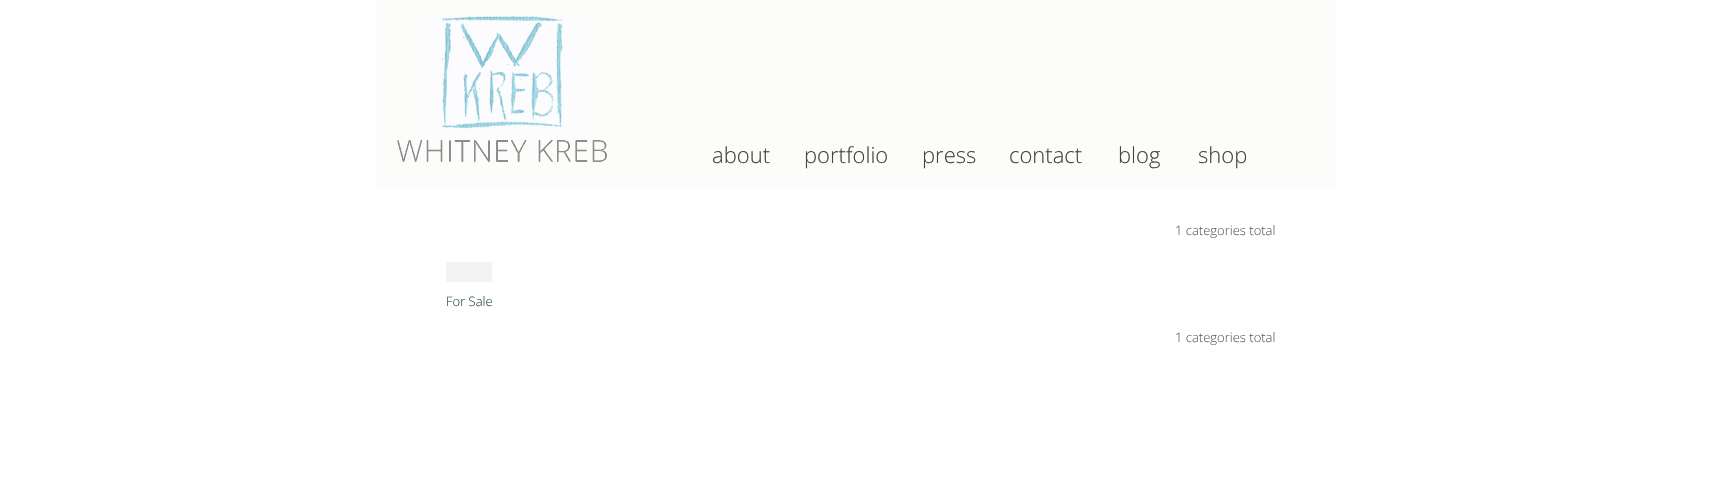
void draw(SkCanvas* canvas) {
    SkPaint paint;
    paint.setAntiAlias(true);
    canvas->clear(0xFFFFFFFF);
    paint.setColor(0xFFFCFCFA);
    canvas->drawRect(SkRect::MakeXYWH(376, 0, 960, 188), paint);
    canvas->drawImageRect(SkImages::DeferredFromEncodedData(SkData::MakeFromFileName("img1.png")), SkRect::MakeXYWH(397, 16, 210, 146), SkSamplingOptions());
    SkFont font1(fontMgr->matchFamilyStyle("Open Sans", SkFontStyle(300, SkFontStyle::kNormal_Width, SkFontStyle::kUpright_Slant)), 22);
    font1.setSubpixel(true);
    paint.setColor(0xFF434343);
    canvas->drawString("about", 712, 163, font1, paint);
    canvas->drawString("portfolio", 804, 163, font1, paint);
    canvas->drawString("press", 922, 163, font1, paint);
    canvas->drawString("contact", 1009, 163, font1, paint);
    canvas->drawString("blog", 1118, 163, font1, paint);
    canvas->drawString("shop", 1198, 163, font1, paint);
    SkFont font2(fontMgr->matchFamilyStyle("Open Sans", SkFontStyle(300, SkFontStyle::kNormal_Width, SkFontStyle::kUpright_Slant)), 13);
    font2.setSubpixel(true);
    paint.setColor(0xFF606060);
    canvas->drawString("1 categories total", 1175, 235, font2, paint);
    paint.setColor(0xFFF3F3F1);
    canvas->drawRect(SkRect::MakeXYWH(446, 262, 46, 20), paint);
    paint.setColor(0xFF294B4C);
    canvas->drawString("For Sale", 446, 306, font2, paint);
    paint.setColor(0xFF606060);
    canvas->drawString("1 categories total", 1175, 342, font2, paint);
}
